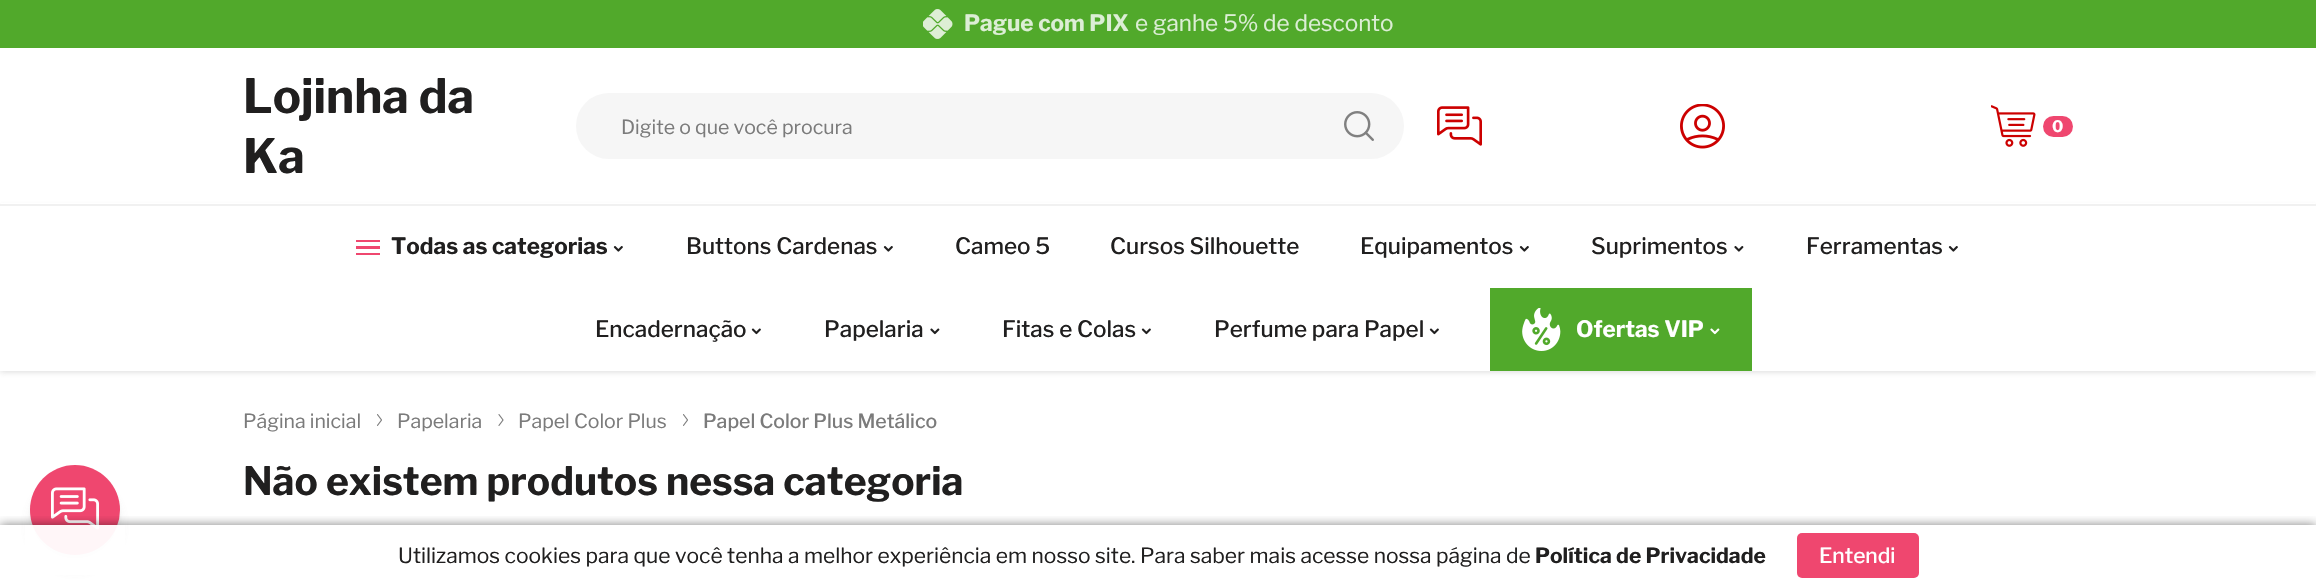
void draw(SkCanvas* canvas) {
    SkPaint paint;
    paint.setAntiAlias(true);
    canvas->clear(0xFFFFFFFF);
    paint.setColor(0xFF51A92B);
    canvas->drawRect(SkRect::MakeXYWH(0, 0, 2316, 48), paint);
    canvas->drawImageRect(SkImages::DeferredFromEncodedData(SkData::MakeFromFileName("img1.png")), SkRect::MakeXYWH(923, 9, 30, 30), SkSamplingOptions());
    SkFont font1(fontMgr->matchFamilyStyle("Libre Franklin", SkFontStyle::Bold()), 22.5f);
    font1.setSubpixel(true);
    paint.setColor(0xFFDCEED5);
    canvas->drawString("Pague com PIX", 964, 31, font1, paint);
    SkFont font2(fontMgr->matchFamilyStyle("Libre Franklin", SkFontStyle::Normal()), 22.5f);
    font2.setSubpixel(true);
    canvas->drawString("e ganhe 5% de desconto", 1135, 31, font2, paint);
    paint.setColor(0x33525252);
    paint.setMaskFilter(SkMaskFilter::MakeBlur(kNormal_SkBlurStyle, 3));
    canvas->drawRect(SkRect::MakeXYWH(0, 207, 2316, 165), paint);
    paint.setMaskFilter(nullptr);
    paint.setColor(0xFFFFFFFF);
    canvas->drawRect(SkRect::MakeXYWH(1, 203, 2314, 1), paint);
    paint.setColor(0xFFF1F1F1);
    canvas->drawRect(SkRect::MakeXYWH(0, 204, 2316, 2), paint);
    SkFont font3(fontMgr->matchFamilyStyle("Libre Franklin", SkFontStyle::Bold()), 47.25f);
    font3.setSubpixel(true);
    paint.setColor(0xFF201F1F);
    canvas->drawString("Lojinha da", 243, 113, font3, paint);
    canvas->drawString("Ka", 243, 173, font3, paint);
    paint.setColor(0xFFF6F6F6);
    canvas->drawRoundRect(SkRect::MakeXYWH(576, 93, 828, 66), 33, 33, paint);
    SkFont font4(fontMgr->matchFamilyStyle("Libre Franklin", SkFontStyle::Normal()), 19.5f);
    font4.setSubpixel(true);
    paint.setColor(0xFF7B7B7B);
    canvas->drawString("Digite o que você procura", 621, 134, font4, paint);
    canvas->drawImageRect(SkImages::DeferredFromEncodedData(SkData::MakeFromFileName("img2.png")), SkRect::MakeXYWH(1344, 111, 30, 30), SkSamplingOptions());
    canvas->drawImageRect(SkImages::DeferredFromEncodedData(SkData::MakeFromFileName("img3.png")), SkRect::MakeXYWH(1437, 106, 45, 40), SkSamplingOptions());
    canvas->drawImageRect(SkImages::DeferredFromEncodedData(SkData::MakeFromFileName("img4.png")), SkRect::MakeXYWH(1680, 104, 45, 45), SkSamplingOptions());
    canvas->drawImageRect(SkImages::DeferredFromEncodedData(SkData::MakeFromFileName("img5.png")), SkRect::MakeXYWH(1991, 105, 45, 42), SkSamplingOptions());
    paint.setColor(0xFFEF476F);
    canvas->drawRoundRect(SkRect::MakeXYWH(2043, 116, 30, 21), 10.5f, 10.5f, paint);
    SkFont font5(fontMgr->matchFamilyStyle("Libre Franklin", SkFontStyle::Bold()), 16);
    font5.setSubpixel(true);
    paint.setColor(0xFFFFFFFF);
    canvas->drawString("0", 2052, 132, font5, paint);
    canvas->drawRect(SkRect::MakeXYWH(0, 206, 2316, 165), paint);
    paint.setColor(0xFFEF476F);
    canvas->drawRect(SkRect::MakeXYWH(356, 253, 24, 2), paint);
    canvas->drawRect(SkRect::MakeXYWH(356, 246, 24, 3), paint);
    canvas->drawRect(SkRect::MakeXYWH(356, 240, 24, 2), paint);
    paint.setColor(0xFF201F1F);
    canvas->drawString("Todas as categorias", 391, 254, font1, paint);
    canvas->drawImageRect(SkImages::DeferredFromEncodedData(SkData::MakeFromFileName("img6.png")), SkRect::MakeXYWH(613, 246, 10, 6), SkSamplingOptions());
    SkFont font6(fontMgr->matchFamilyStyle("Libre Franklin", SkFontStyle(500, SkFontStyle::kNormal_Width, SkFontStyle::kUpright_Slant)), 22.5f);
    font6.setSubpixel(true);
    canvas->drawString("Buttons Cardenas", 686, 254, font6, paint);
    canvas->drawImageRect(SkImages::DeferredFromEncodedData(SkData::MakeFromFileName("img6.png")), SkRect::MakeXYWH(883, 246, 10, 6), SkSamplingOptions());
    canvas->drawString("Cameo 5", 955, 254, font6, paint);
    canvas->drawString("Cursos Silhouette", 1110, 254, font6, paint);
    canvas->drawString("Equipamentos", 1360, 254, font6, paint);
    canvas->drawImageRect(SkImages::DeferredFromEncodedData(SkData::MakeFromFileName("img6.png")), SkRect::MakeXYWH(1519, 246, 10, 6), SkSamplingOptions());
    canvas->drawString("Suprimentos", 1591, 254, font6, paint);
    canvas->drawImageRect(SkImages::DeferredFromEncodedData(SkData::MakeFromFileName("img7.png")), SkRect::MakeXYWH(1734, 246, 10, 6), SkSamplingOptions());
    canvas->drawString("Ferramentas", 1806, 254, font6, paint);
    canvas->drawImageRect(SkImages::DeferredFromEncodedData(SkData::MakeFromFileName("img6.png")), SkRect::MakeXYWH(1948, 246, 10, 6), SkSamplingOptions());
    canvas->drawString("Encadernação", 595, 337, font6, paint);
    canvas->drawImageRect(SkImages::DeferredFromEncodedData(SkData::MakeFromFileName("img8.png")), SkRect::MakeXYWH(751, 328, 10, 7), SkSamplingOptions());
    canvas->drawString("Papelaria", 824, 337, font6, paint);
    canvas->drawImageRect(SkImages::DeferredFromEncodedData(SkData::MakeFromFileName("img9.png")), SkRect::MakeXYWH(930, 328, 10, 7), SkSamplingOptions());
    canvas->drawString("Fitas e Colas", 1002, 337, font6, paint);
    canvas->drawImageRect(SkImages::DeferredFromEncodedData(SkData::MakeFromFileName("img8.png")), SkRect::MakeXYWH(1141, 328, 10, 7), SkSamplingOptions());
    canvas->drawString("Perfume para Papel", 1214, 337, font6, paint);
    canvas->drawImageRect(SkImages::DeferredFromEncodedData(SkData::MakeFromFileName("img8.png")), SkRect::MakeXYWH(1429, 328, 10, 7), SkSamplingOptions());
    paint.setColor(0xFF51A92B);
    canvas->drawRect(SkRect::MakeXYWH(1490, 288, 262, 83), paint);
    canvas->drawImageRect(SkImages::DeferredFromEncodedData(SkData::MakeFromFileName("img10.png")), SkRect::MakeXYWH(1522, 308, 39, 43), SkSamplingOptions());
    paint.setColor(0xFFFFFFFF);
    canvas->drawString("Ofertas VIP", 1576, 337, font1, paint);
    canvas->drawImageRect(SkImages::DeferredFromEncodedData(SkData::MakeFromFileName("img11.png")), SkRect::MakeXYWH(1710, 328, 10, 7), SkSamplingOptions());
    paint.setColor(0xFF7B7B7B);
    canvas->drawString("Página inicial", 243, 428, font4, paint);
    canvas->drawImageRect(SkImages::DeferredFromEncodedData(SkData::MakeFromFileName("img12.png")), SkRect::MakeXYWH(377, 414, 5, 12), SkSamplingOptions());
    canvas->drawString("Papelaria", 397, 428, font4, paint);
    canvas->drawImageRect(SkImages::DeferredFromEncodedData(SkData::MakeFromFileName("img13.png")), SkRect::MakeXYWH(498, 414, 6, 12), SkSamplingOptions());
    canvas->drawString("Papel Color Plus", 518, 428, font4, paint);
    canvas->drawImageRect(SkImages::DeferredFromEncodedData(SkData::MakeFromFileName("img12.png")), SkRect::MakeXYWH(683, 414, 5, 12), SkSamplingOptions());
    SkFont font7(fontMgr->matchFamilyStyle("Libre Franklin", SkFontStyle(500, SkFontStyle::kNormal_Width, SkFontStyle::kUpright_Slant)), 19.5f);
    font7.setSubpixel(true);
    canvas->drawString("Papel Color Plus Metálico", 703, 428, font7, paint);
    SkFont font8(fontMgr->matchFamilyStyle("Libre Franklin", SkFontStyle::Bold()), 39);
    font8.setSubpixel(true);
    paint.setColor(0xFF201F1F);
    canvas->drawString("Não existem produtos nessa categoria", 243, 495, font8, paint);
    paint.setColor(0x1A676767);
    paint.setMaskFilter(SkMaskFilter::MakeBlur(kNormal_SkBlurStyle, 6));
    canvas->drawRoundRect(SkRect::MakeXYWH(30, 480, 90, 90), 45, 45, paint);
    paint.setMaskFilter(nullptr);
    paint.setColor(0x0A000000);
    paint.setMaskFilter(SkMaskFilter::MakeBlur(kNormal_SkBlurStyle, 1));
    canvas->drawRoundRect(SkRect::MakeXYWH(30, 468, 90, 90), 45, 45, paint);
    paint.setMaskFilter(nullptr);
    paint.setColor(0xFFEF476F);
    canvas->drawCircle(75, 510, 45, paint);
    canvas->drawImageRect(SkImages::DeferredFromEncodedData(SkData::MakeFromFileName("img14.png")), SkRect::MakeXYWH(51, 487, 48, 43), SkSamplingOptions());
    canvas->save();
    canvas->clipRect(SkRect::MakeXYWH(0, 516, 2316, 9));
    paint.setColor(0x80000000);
    paint.setMaskFilter(SkMaskFilter::MakeBlur(kNormal_SkBlurStyle, 5));
    canvas->drawRect(SkRect::MakeXYWH(0, 525, 2316, 60), paint);
    paint.setMaskFilter(nullptr);
    canvas->restore();
    paint.setColor(0xF2FFFFFF);
    canvas->drawRect(SkRect::MakeXYWH(25, 525, 100, 50), paint);
    SkFont font9(fontMgr->matchFamilyStyle("Libre Franklin", SkFontStyle::Normal()), 21);
    font9.setSubpixel(true);
    paint.setColor(0xFF201F1F);
    canvas->drawString("Utilizamos cookies para que você tenha a melhor experiência em nosso site. Para saber mais acesse nossa página de", 398, 563, font9, paint);
    SkFont font10(fontMgr->matchFamilyStyle("Libre Franklin", SkFontStyle::Bold()), 21);
    font10.setSubpixel(true);
    canvas->drawString("Política de Privacidade", 1535, 563, font10, paint);
    paint.setColor(0xFFEF476F);
    canvas->drawRoundRect(SkRect::MakeXYWH(1797, 533, 122, 45), 5, 5, paint);
    SkFont font11(fontMgr->matchFamilyStyle("Libre Franklin", SkFontStyle(500, SkFontStyle::kNormal_Width, SkFontStyle::kUpright_Slant)), 21);
    font11.setSubpixel(true);
    paint.setColor(0xFFFFFFFF);
    canvas->drawString("Entendi", 1819, 563, font11, paint);
}
